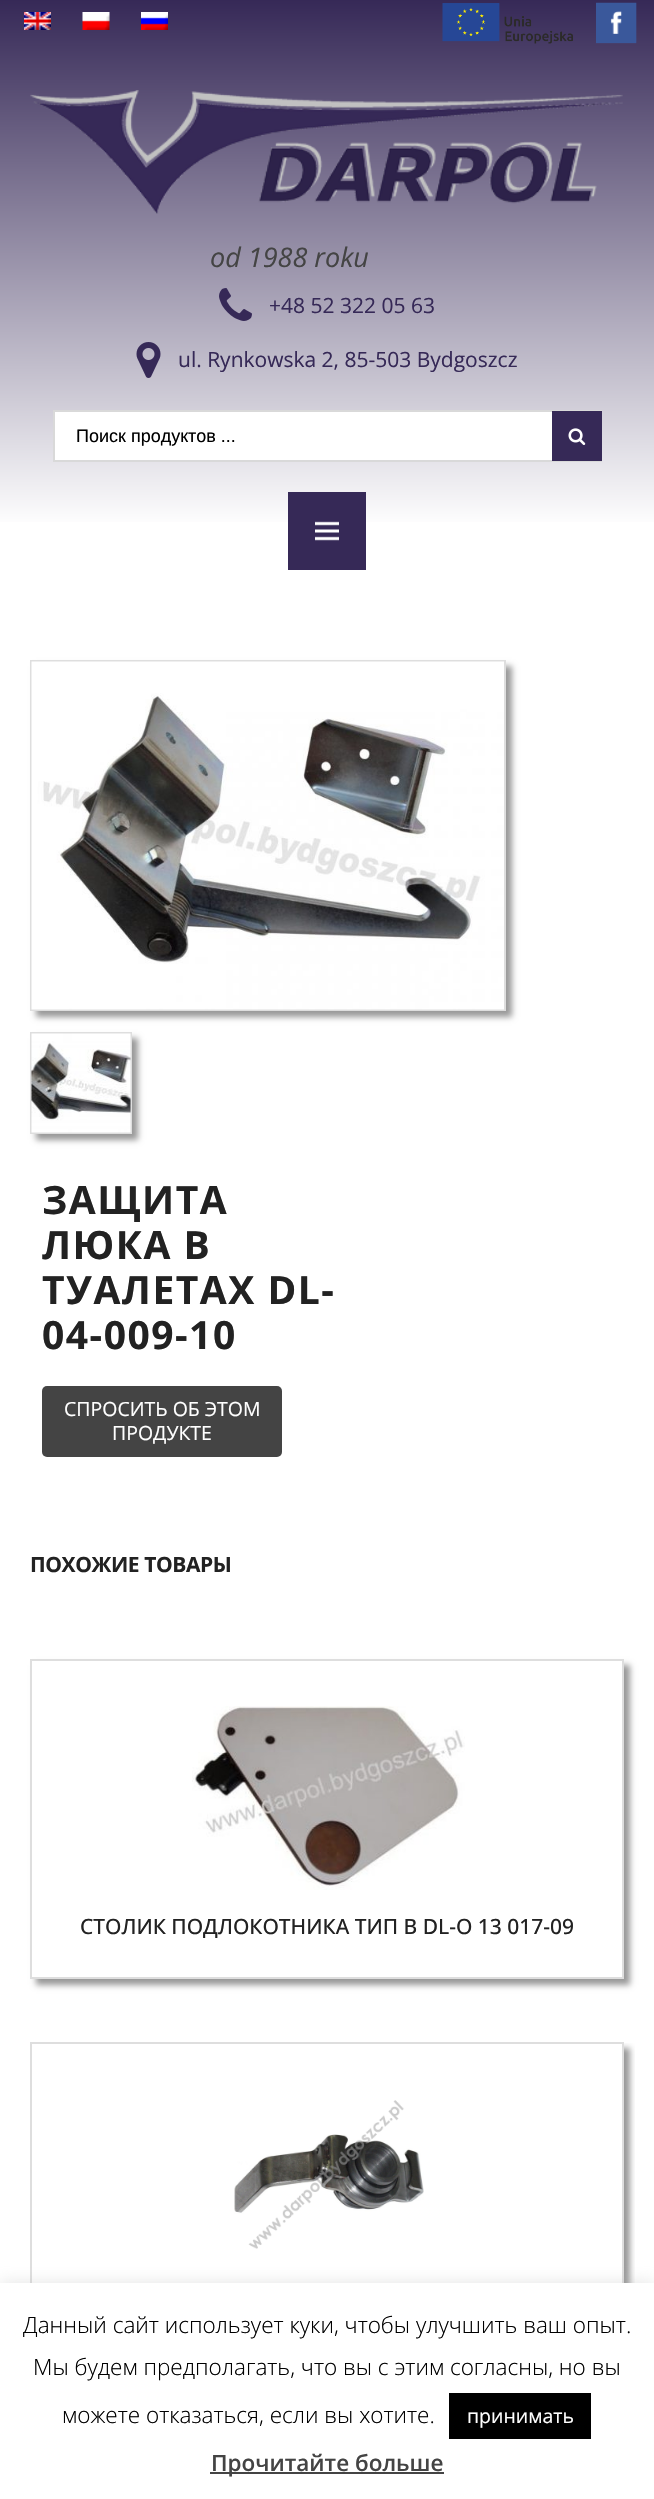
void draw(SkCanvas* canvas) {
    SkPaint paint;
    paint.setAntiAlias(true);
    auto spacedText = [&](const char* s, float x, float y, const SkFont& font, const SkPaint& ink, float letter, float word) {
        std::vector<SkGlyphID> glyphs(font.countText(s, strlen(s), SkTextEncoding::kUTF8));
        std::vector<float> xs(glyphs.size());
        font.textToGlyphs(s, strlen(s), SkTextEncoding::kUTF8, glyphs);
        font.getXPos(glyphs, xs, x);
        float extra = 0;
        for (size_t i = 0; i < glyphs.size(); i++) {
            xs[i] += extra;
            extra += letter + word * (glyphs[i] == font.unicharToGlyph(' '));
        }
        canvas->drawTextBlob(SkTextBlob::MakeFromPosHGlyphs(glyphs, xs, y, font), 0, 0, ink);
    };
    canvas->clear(0xFFFFFFFF);
    {
        const SkColor colors[] = {0xFF362957, 0xFFFFFFFF};
        const float stops[] = {0, 0.88f};
        const SkPoint ends[] = {{327, 0}, {327, 600}};
        paint.setShader(SkGradientShader::MakeLinear(ends, colors, stops, 2, SkTileMode::kClamp));
        paint.setAlpha(255);
    }
    canvas->drawRect(SkRect::MakeXYWH(0, 0, 654, 522), paint);
    canvas->drawImageRect(SkImages::DeferredFromEncodedData(SkData::MakeFromFileName("img1.png")), SkRect::MakeXYWH(24, 12, 27, 18), SkSamplingOptions());
    canvas->drawImageRect(SkImages::DeferredFromEncodedData(SkData::MakeFromFileName("img2.png")), SkRect::MakeXYWH(82, 12, 28, 18), SkSamplingOptions());
    canvas->drawImageRect(SkImages::DeferredFromEncodedData(SkData::MakeFromFileName("img3.png")), SkRect::MakeXYWH(141, 12, 27, 18), SkSamplingOptions());
    canvas->drawImageRect(SkImages::DeferredFromEncodedData(SkData::MakeFromFileName("img4.png")), SkRect::MakeXYWH(442, 3, 131, 41), SkSamplingOptions());
    canvas->drawImageRect(SkImages::DeferredFromEncodedData(SkData::MakeFromFileName("img5.png")), SkRect::MakeXYWH(596, 2, 41, 42), SkSamplingOptions());
    canvas->drawImageRect(SkImages::DeferredFromEncodedData(SkData::MakeFromFileName("img6.png")), SkRect::MakeXYWH(30, 90, 593, 124), SkSamplingOptions());
    SkFont font1(fontMgr->matchFamilyStyle("Open Sans", SkFontStyle::Italic()), 27);
    font1.setSubpixel(true);
    paint.setShader(nullptr);
    paint.setColor(0xFF444444);
    canvas->drawString("od 1988 roku", 210, 267, font1, paint);
    canvas->drawImageRect(SkImages::DeferredFromEncodedData(SkData::MakeFromFileName("img7.png")), SkRect::MakeXYWH(219, 288, 33, 33), SkSamplingOptions());
    SkFont font2(fontMgr->matchFamilyStyle("Open Sans", SkFontStyle::Normal()), 21);
    font2.setSubpixel(true);
    paint.setColor(0xFF362957);
    canvas->drawString("+48 52 322 05 63", 269, 313, font2, paint);
    canvas->drawImageRect(SkImages::DeferredFromEncodedData(SkData::MakeFromFileName("img8.png")), SkRect::MakeXYWH(136, 342, 25, 36), SkSamplingOptions());
    canvas->drawString("ul. Rynkowska 2, 85-503 Bydgoszcz", 178, 367, font2, paint);
    paint.setColor(0xFFFFFFFF);
    canvas->drawRect(SkRect::MakeXYWH(55, 412, 497, 48), paint);
    paint.setStyle(SkPaint::kStroke_Style);
    paint.setStrokeWidth(2);
    paint.setColor(0xFFD9D9D9);
    canvas->drawRect(SkRect::MakeXYWH(54, 411, 547, 50), paint);
    SkFont font3(fontMgr->matchFamilyStyle("Liberation Sans", SkFontStyle::Normal()), 18);
    font3.setSubpixel(true);
    paint.setStyle(SkPaint::kFill_Style);
    paint.setColor(0xFF000000);
    canvas->drawString("Поиск продуктов ...", 76, 442, font3, paint);
    paint.setColor(0xFF362957);
    canvas->drawRect(SkRect::MakeXYWH(552, 411, 50, 50), paint);
    canvas->drawImageRect(SkImages::DeferredFromEncodedData(SkData::MakeFromFileName("img9.png")), SkRect::MakeXYWH(568, 428, 18, 17), SkSamplingOptions());
    canvas->drawRect(SkRect::MakeXYWH(288, 492, 78, 78), paint);
    canvas->drawImageRect(SkImages::DeferredFromEncodedData(SkData::MakeFromFileName("img10.png")), SkRect::MakeXYWH(315, 521, 24, 20), SkSamplingOptions());
    paint.setColor(0x66000000);
    paint.setMaskFilter(SkMaskFilter::MakeBlur(kNormal_SkBlurStyle, 3));
    canvas->drawRect(SkRect::MakeXYWH(36, 666, 476, 351), paint);
    paint.setMaskFilter(nullptr);
    paint.setStyle(SkPaint::kStroke_Style);
    paint.setColor(0xFFDEDEDE);
    canvas->drawRect(SkRect::MakeXYWH(31, 661, 474, 349), paint);
    canvas->drawImageRect(SkImages::DeferredFromEncodedData(SkData::MakeFromFileName("img11.png")), SkRect::MakeXYWH(31, 661, 473, 349), SkSamplingOptions());
    paint.setStyle(SkPaint::kFill_Style);
    paint.setColor(0x66000000);
    paint.setMaskFilter(SkMaskFilter::MakeBlur(kNormal_SkBlurStyle, 3));
    canvas->drawRect(SkRect::MakeXYWH(36, 1038, 102, 102), paint);
    paint.setMaskFilter(nullptr);
    paint.setStyle(SkPaint::kStroke_Style);
    paint.setColor(0xFFDEDEDE);
    canvas->drawRect(SkRect::MakeXYWH(31, 1033, 100, 100), paint);
    canvas->drawImageRect(SkImages::DeferredFromEncodedData(SkData::MakeFromFileName("img12.png")), SkRect::MakeXYWH(31, 1033, 100, 100), SkSamplingOptions());
    SkFont font4(fontMgr->matchFamilyStyle("Open Sans", SkFontStyle::Bold()), 39);
    font4.setSubpixel(true);
    paint.setStyle(SkPaint::kFill_Style);
    paint.setColor(0xFF222222);
    spacedText("ЗАЩИТА", 42, 1214, font4, paint, 1.5f, 0);
    spacedText("ЛЮКА В", 42, 1259, font4, paint, 1.5f, 0);
    spacedText("ТУАЛЕТАХ DL-", 42, 1304, font4, paint, 1.5f, 0);
    spacedText("04-009-10", 42, 1349, font4, paint, 1.5f, 0);
    paint.setColor(0xFF444444);
    canvas->drawRoundRect(SkRect::MakeXYWH(42, 1386, 240, 71), 5, 5, paint);
    SkFont font5(fontMgr->matchFamilyStyle("Open Sans", SkFontStyle::Normal()), 19.5f);
    font5.setSubpixel(true);
    paint.setColor(0xFFFFFFFF);
    canvas->drawString("СПРОСИТЬ ОБ ЭТОМ", 64, 1416, font5, paint);
    canvas->drawString("ПРОДУКТЕ", 112, 1440, font5, paint);
    SkFont font6(fontMgr->matchFamilyStyle("Open Sans", SkFontStyle::Bold()), 21);
    font6.setSubpixel(true);
    paint.setColor(0xFF222222);
    spacedText("ПОХОЖИЕ ТОВАРЫ", 30, 1572, font6, paint, -0.4f, 0);
    paint.setColor(0x66000000);
    paint.setMaskFilter(SkMaskFilter::MakeBlur(kNormal_SkBlurStyle, 3));
    canvas->drawRect(SkRect::MakeXYWH(36, 1665, 594, 320), paint);
    paint.setMaskFilter(nullptr);
    paint.setColor(0xFFFFFFFF);
    canvas->drawRect(SkRect::MakeXYWH(31, 1660, 592, 318), paint);
    paint.setStyle(SkPaint::kStroke_Style);
    paint.setColor(0xFFDEDEDE);
    canvas->drawRect(SkRect::MakeXYWH(31, 1660, 592, 318), paint);
    canvas->drawImageRect(SkImages::DeferredFromEncodedData(SkData::MakeFromFileName("img13.png")), SkRect::MakeXYWH(192, 1706, 273, 184), SkSamplingOptions());
    SkFont font7(fontMgr->matchFamilyStyle("Open Sans", SkFontStyle(500, SkFontStyle::kNormal_Width, SkFontStyle::kUpright_Slant)), 21);
    font7.setSubpixel(true);
    paint.setStyle(SkPaint::kFill_Style);
    paint.setColor(0xFF222222);
    canvas->drawString("СТОЛИК ПОДЛОКОТНИКА ТИП B DL-O 13 017-09", 80, 1934, font7, paint);
    canvas->save();
    canvas->clipRect(SkRect::MakeXYWH(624, 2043, 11, 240));
    paint.setColor(0x66000000);
    paint.setMaskFilter(SkMaskFilter::MakeBlur(kNormal_SkBlurStyle, 3));
    canvas->drawRect(SkRect::MakeXYWH(36, 2048, 594, 319), paint);
    paint.setMaskFilter(nullptr);
    canvas->restore();
    paint.setStyle(SkPaint::kStroke_Style);
    paint.setColor(0xFFDEDEDE);
    canvas->drawRect(SkRect::MakeXYWH(31, 2043, 592, 317), paint);
    canvas->drawImageRect(SkImages::DeferredFromEncodedData(SkData::MakeFromFileName("img14.png")), SkRect::MakeXYWH(234, 2100, 190, 149), SkSamplingOptions());
    paint.setStyle(SkPaint::kFill_Style);
    paint.setColor(0x4DACABAB);
    paint.setMaskFilter(SkMaskFilter::MakeBlur(kNormal_SkBlurStyle, 7.5f));
    canvas->drawRect(SkRect::MakeXYWH(0, 2282, 654, 216), paint);
    paint.setMaskFilter(nullptr);
    paint.setColor(0xFFFFFFFF);
    canvas->drawRect(SkRect::MakeXYWH(0, 2283, 654, 216), paint);
    SkFont font8(fontMgr->matchFamilyStyle("Open Sans", SkFontStyle(300, SkFontStyle::kNormal_Width, SkFontStyle::kUpright_Slant)), 22.5f);
    font8.setSubpixel(true);
    paint.setColor(0xFF000000);
    canvas->drawString("Данный сайт использует куки, чтобы улучшить ваш опыт.", 23, 2333, font8, paint);
    canvas->drawString("Мы будем предполагать, что вы с этим согласны, но вы", 33, 2375, font8, paint);
    canvas->drawString("можете отказаться, если вы хотите.", 62, 2423, font8, paint);
    canvas->drawRect(SkRect::MakeXYWH(449, 2393, 142, 46), paint);
    paint.setColor(0xFFFFFFFF);
    canvas->drawString("принимать", 467, 2423, font5, paint);
    paint.setColor(0xFF444444);
    canvas->drawRect(SkRect::MakeXYWH(210, 2472, 234, 2), paint);
    SkFont font9(fontMgr->matchFamilyStyle("Open Sans", SkFontStyle(600, SkFontStyle::kNormal_Width, SkFontStyle::kUpright_Slant)), 22.5f);
    font9.setSubpixel(true);
    canvas->drawString("Прочитайте больше", 211, 2471, font9, paint);
}
